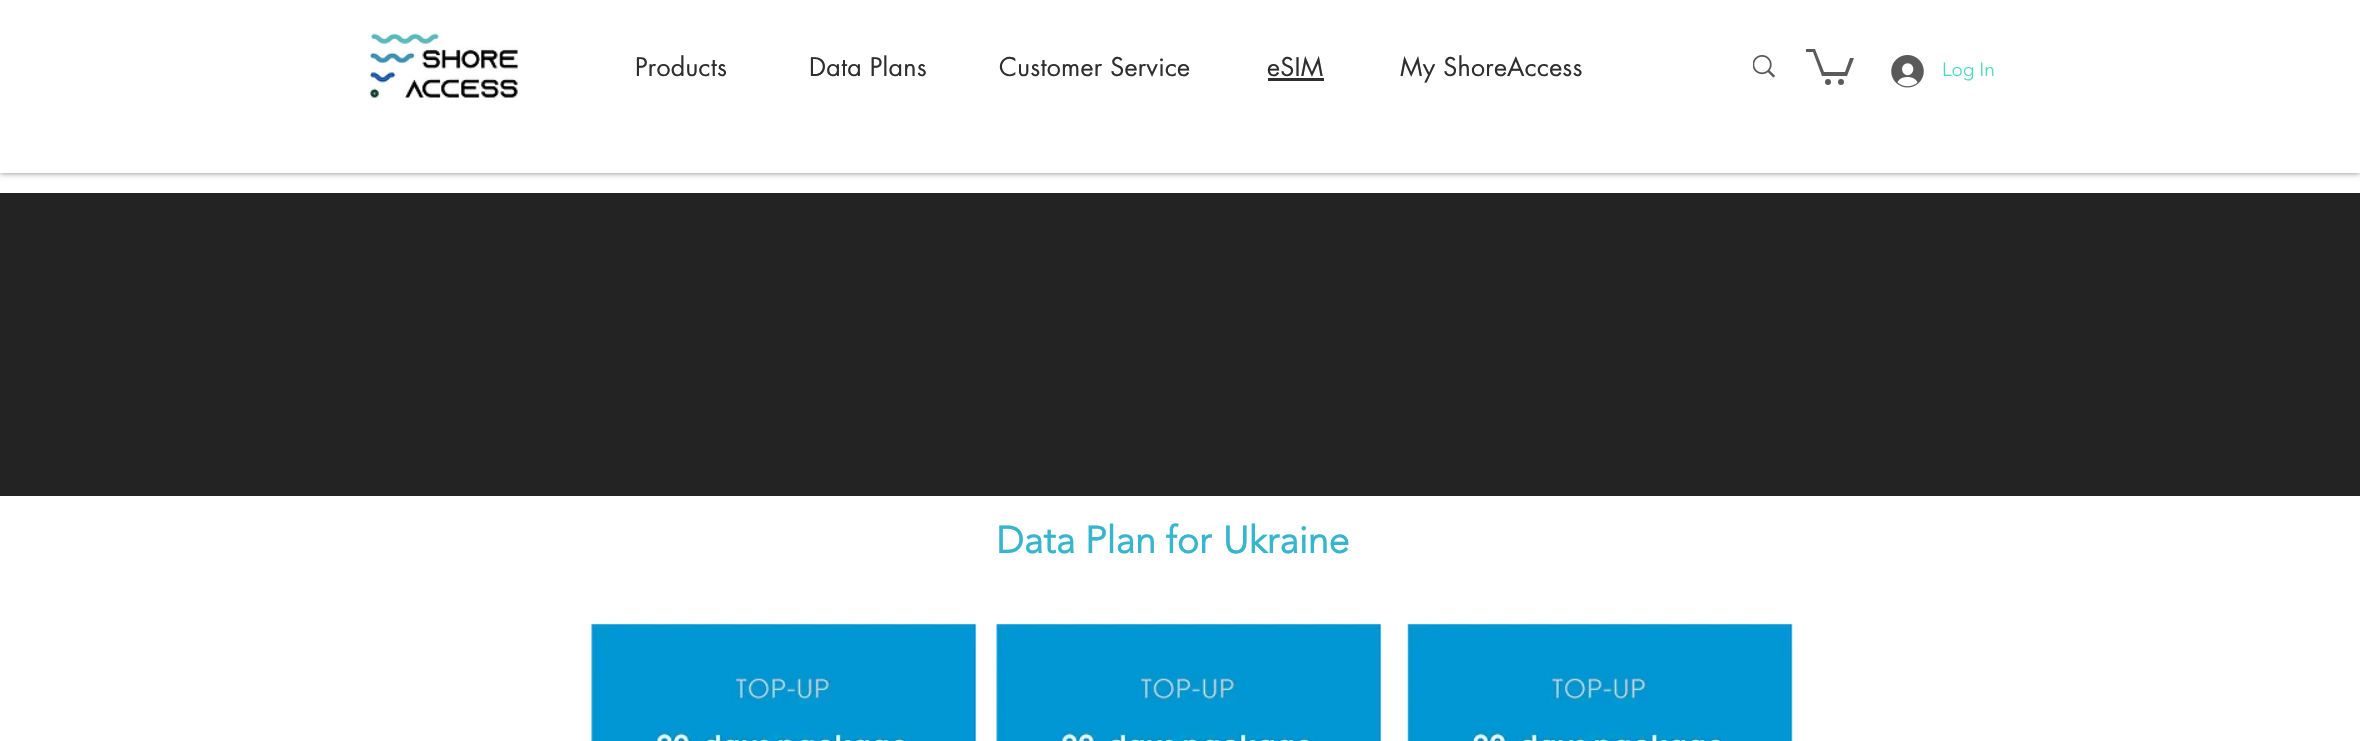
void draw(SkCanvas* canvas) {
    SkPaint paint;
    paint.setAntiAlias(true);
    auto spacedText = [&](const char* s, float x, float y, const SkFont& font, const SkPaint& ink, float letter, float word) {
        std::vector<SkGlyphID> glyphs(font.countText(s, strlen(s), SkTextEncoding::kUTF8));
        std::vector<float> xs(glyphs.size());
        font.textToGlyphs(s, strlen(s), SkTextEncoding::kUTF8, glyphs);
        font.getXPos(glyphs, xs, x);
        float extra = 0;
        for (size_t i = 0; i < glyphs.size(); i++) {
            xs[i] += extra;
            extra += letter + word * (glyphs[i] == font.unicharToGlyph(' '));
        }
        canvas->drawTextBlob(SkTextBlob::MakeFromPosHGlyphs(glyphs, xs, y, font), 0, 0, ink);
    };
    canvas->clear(0xFFFFFFFF);
    paint.setColor(0x80000000);
    paint.setMaskFilter(SkMaskFilter::MakeBlur(kNormal_SkBlurStyle, 3));
    canvas->drawRect(SkRect::MakeXYWH(0, 0, 2360, 173), paint);
    paint.setMaskFilter(nullptr);
    paint.setColor(0xFFFFFFFF);
    canvas->drawRect(SkRect::MakeXYWH(0, 0, 2360, 173), paint);
    canvas->drawImageRect(SkImages::DeferredFromEncodedData(SkData::MakeFromFileName("img1.png")), SkRect::MakeXYWH(369, 33, 149, 65), SkSamplingOptions());
    SkFont font1(fontMgr->matchFamilyStyle("futura", SkFontStyle::Normal()), 25);
    font1.setSubpixel(true);
    paint.setColor(0xFF2F2E2E);
    spacedText("Products", 635, 76, font1, paint, 0.25f, 0);
    spacedText("Data Plans", 809, 76, font1, paint, 0.25f, 0);
    spacedText("Customer Service", 999, 76, font1, paint, 0.25f, 0);
    spacedText("eSIM", 1267, 76, font1, paint, 0.25f, 0);
    canvas->drawRect(SkRect::MakeXYWH(1268, 78, 56, 3), paint);
    spacedText("My ShoreAccess", 1400, 76, font1, paint, 0.25f, 0);
    canvas->drawImageRect(SkImages::DeferredFromEncodedData(SkData::MakeFromFileName("img2.png")), SkRect::MakeXYWH(1753, 55, 22, 23), SkSamplingOptions());
    paint.setColor(0xFF5A5A5A);
    canvas->drawPath(SkPathBuilder().moveTo(1854, 58).lineTo(1847, 76).lineTo(1822, 76).lineTo(1813, 52).lineTo(1806, 52).lineTo(1806, 49).lineTo(1815, 49).lineTo(1824, 72).lineTo(1845, 72).lineTo(1850, 58).detach(), paint);
    canvas->drawCircle(1841, 82, 3, paint);
    canvas->drawCircle(1828, 82, 3, paint);
    canvas->drawImageRect(SkImages::DeferredFromEncodedData(SkData::MakeFromFileName("img3.png")), SkRect::MakeXYWH(1891, 55, 33, 33), SkSamplingOptions());
    SkFont font2(fontMgr->matchFamilyStyle("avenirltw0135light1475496", SkFontStyle(300, SkFontStyle::kNormal_Width, SkFontStyle::kUpright_Slant)), 19);
    font2.setSubpixel(true);
    paint.setColor(0xFF44DBBD);
    canvas->drawString("Log In", 1942, 76, font2, paint);
    paint.setColor(0xFF242323);
    canvas->drawRect(SkRect::MakeXYWH(0, 193, 2360, 303), paint);
    SkFont font3(fontMgr->matchFamilyStyle("avenirltw0135light1475496", SkFontStyle::Bold()), 37.5f);
    font3.setSubpixel(true);
    paint.setColor(0xFF36B5CD);
    canvas->drawString("Data Plan for", 996, 553, font3, paint);
    canvas->drawString("Ukraine", 1223, 553, font3, paint);
    canvas->drawImageRect(SkImages::DeferredFromEncodedData(SkData::MakeFromFileName("img4.png")), SkRect::MakeXYWH(591, 623, 386, 118), SkSamplingOptions());
    canvas->drawImageRect(SkImages::DeferredFromEncodedData(SkData::MakeFromFileName("img5.png")), SkRect::MakeXYWH(996, 623, 386, 118), SkSamplingOptions());
    canvas->drawImageRect(SkImages::DeferredFromEncodedData(SkData::MakeFromFileName("img6.png")), SkRect::MakeXYWH(1407, 623, 386, 118), SkSamplingOptions());
}
